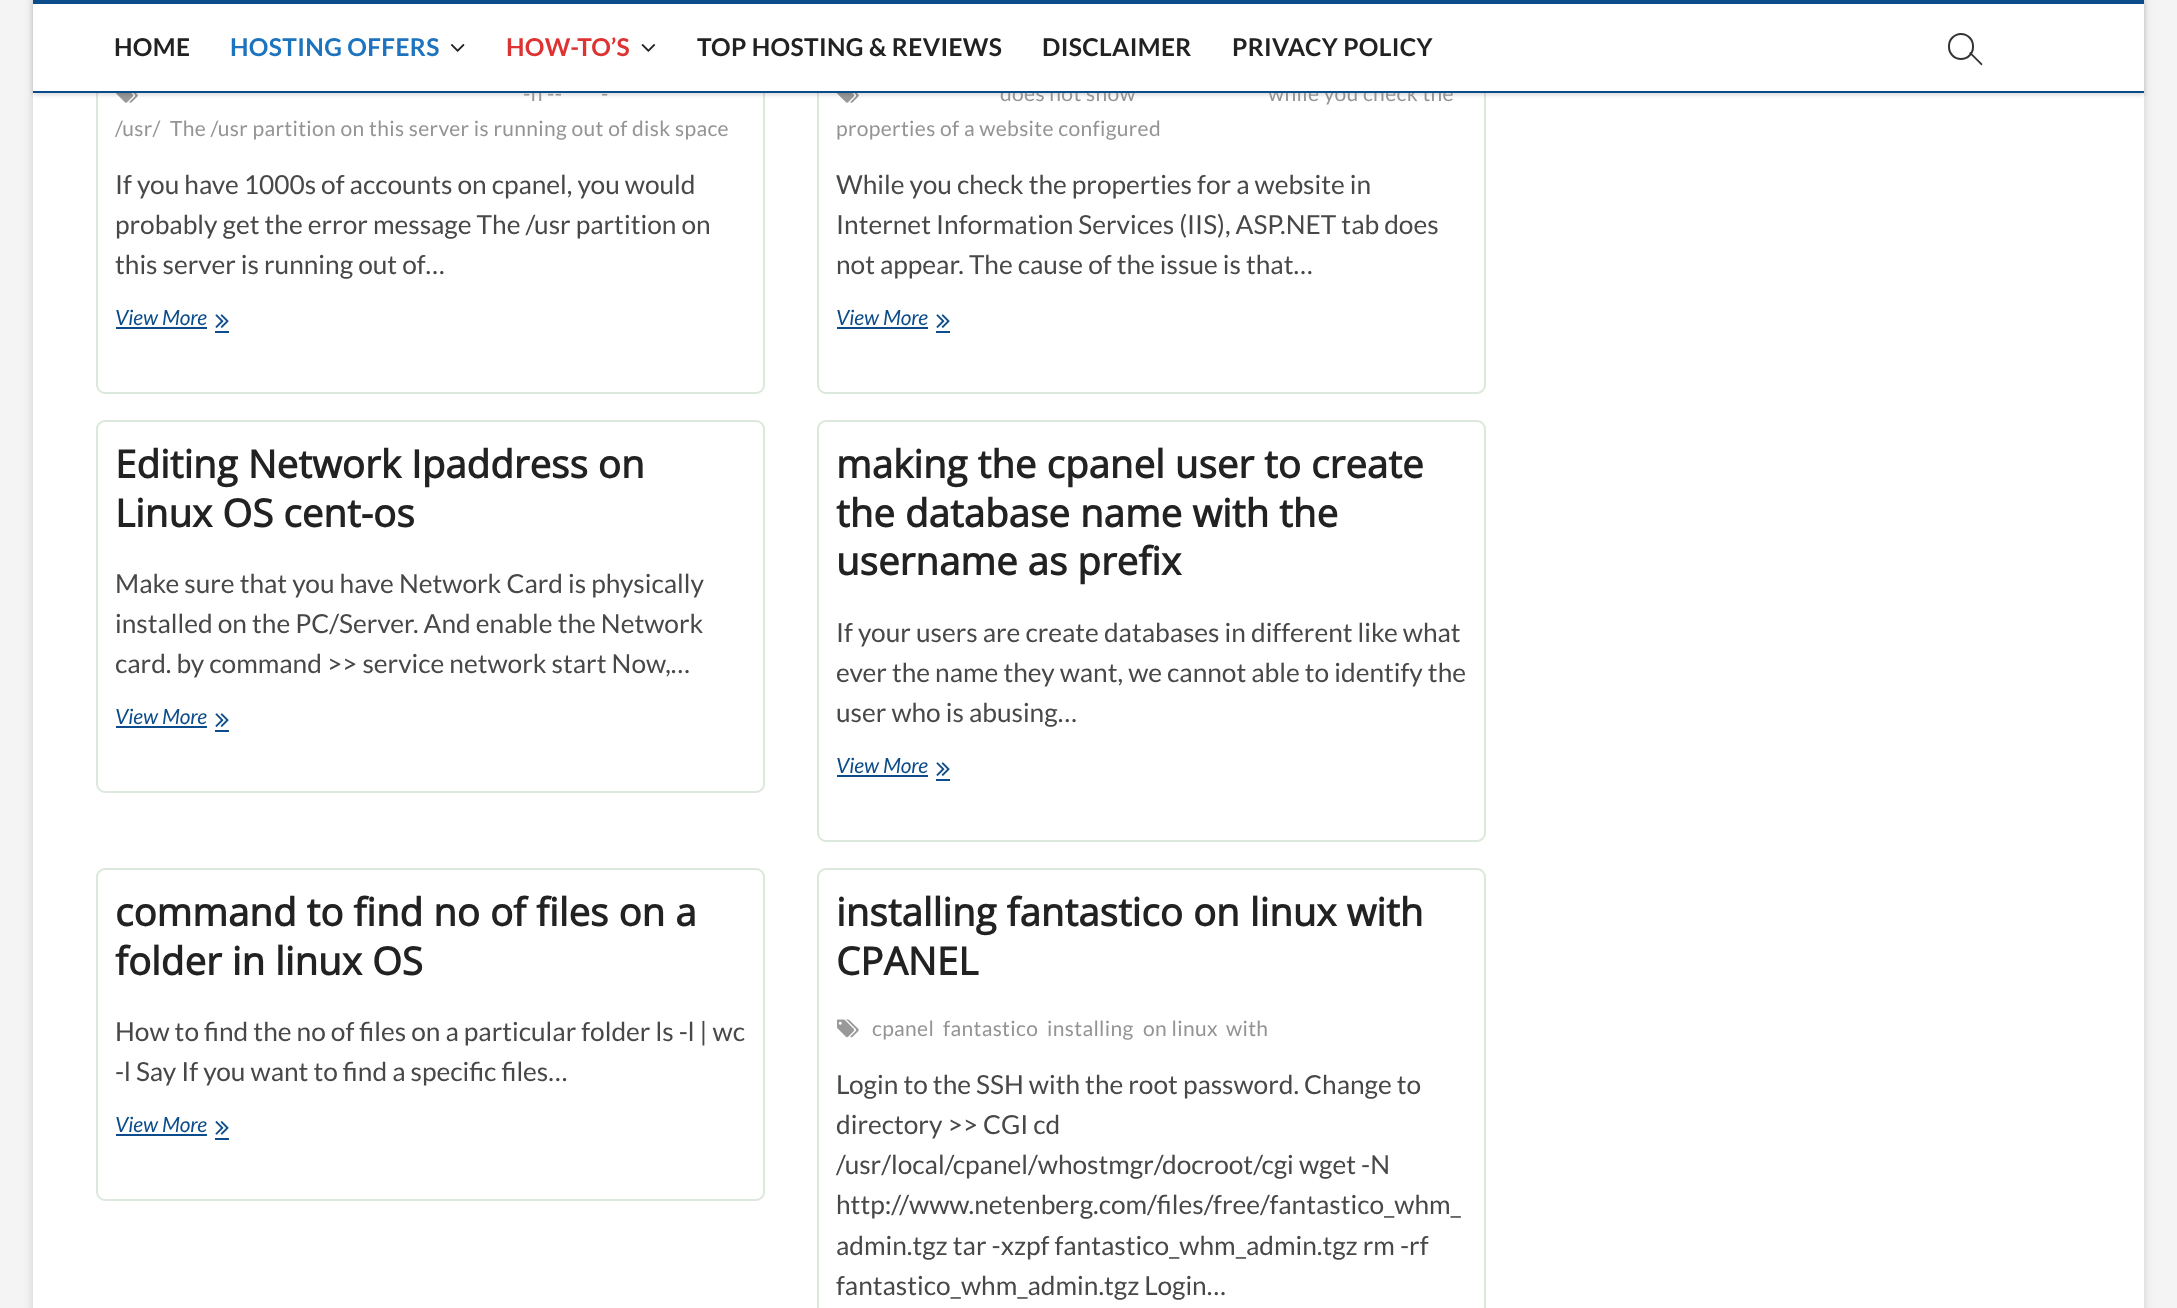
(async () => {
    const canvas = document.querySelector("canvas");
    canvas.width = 2177;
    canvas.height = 1308;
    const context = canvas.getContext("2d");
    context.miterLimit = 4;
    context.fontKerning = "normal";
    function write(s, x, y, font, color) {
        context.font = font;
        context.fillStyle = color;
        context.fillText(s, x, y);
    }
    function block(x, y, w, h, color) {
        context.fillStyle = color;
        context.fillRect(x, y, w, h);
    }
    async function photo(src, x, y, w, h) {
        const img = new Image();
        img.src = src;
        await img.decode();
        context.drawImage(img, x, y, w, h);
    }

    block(0, 0, 2177, 1308, "rgb(244, 244, 244)");
    context.fillStyle = "rgba(0, 0, 0, 0.15)";
    context.filter = "blur(5px)";
    context.beginPath();
    context.rect(33, -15, 2111, 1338);
    context.fill();
    context.filter = "none";
    block(33, 93, 2111, 1215, "rgb(255, 255, 255)");
    context.beginPath();
    context.roundRect(97, -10, 667, 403, 8);
    context.strokeStyle = "rgb(219, 232, 219)";
    context.lineWidth = 2;
    context.stroke();
    await photo("media/3.png", 116, 93, 22, 10);
    context.beginPath();
    context.roundRect(818, -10, 667, 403, 8);
    context.stroke();
    await photo("media/3.png", 837, 93, 22, 10);
    context.fillStyle = "rgba(0, 0, 0, 0.15)";
    context.filter = "blur(2px)";
    context.beginPath();
    context.rect(33, 2, 2111, 93);
    context.fill();
    context.filter = "none";
    context.letterSpacing = "0.35px";
    write("-h --", 523, 101, "21px Lato", "rgb(148, 148, 148)");
    write("does not show", 1000, 101, "21px Lato", "rgb(148, 148, 148)");
    write("while you check the", 1268, 101, "21px Lato", "rgb(148, 148, 148)");
    block(33, 4, 2111, 87, "rgb(255, 255, 255)");
    block(33, 0, 2111, 4, "rgb(12, 76, 138)");
    block(33, 91, 2111, 2, "rgb(12, 76, 138)");
    write("HOME", 114, 56, "bold 24.5px Lato", "rgb(34, 34, 34)");
    write("HOSTING OFFERS", 230, 56, "bold 24.5px Lato", "rgb(30, 115, 190)");
    await photo("media/1.png", 450, 44, 15, 8);
    write("HOW-TO’S", 506, 56, "bold 24.5px Lato", "rgb(221, 51, 51)");
    await photo("media/2.png", 641, 44, 15, 8);
    write("TOP HOSTING & REVIEWS", 697, 56, "bold 24.5px Lato", "rgb(34, 34, 34)");
    write("DISCLAIMER", 1042, 56, "bold 24.5px Lato", "rgb(34, 34, 34)");
    write("PRIVACY POLICY", 1232, 56, "bold 24.5px Lato", "rgb(34, 34, 34)");
    context.beginPath();
    context.roundRect(1949, 34, 24, 25, 12);
    context.strokeStyle = "rgb(51, 51, 51)";
    context.stroke();
    context.fillStyle = "rgb(51, 51, 51)";
    context.beginPath();
    context.moveTo(1969, 53);
    context.lineTo(1970.5, 52);
    context.lineTo(1982.5, 64);
    context.lineTo(1981.5, 65.5);
    context.closePath();
    context.fill();
    write("-", 601, 101, "21px Lato", "rgb(148, 148, 148)");
    write("/usr/", 115, 136, "21px Lato", "rgb(148, 148, 148)");
    write("The /usr partition on this server is running out of disk space", 170, 136, "21px Lato", "rgb(148, 148, 148)");
    context.letterSpacing = "0px";
    write("If you have 1000s of accounts on cpanel, you would", 115, 194, "26.25px Lato", "rgb(72, 72, 72)");
    write("probably get the error message The /usr partition on", 115, 234, "26.25px Lato", "rgb(72, 72, 72)");
    write("this server is running out of…", 115, 274, "26.25px Lato", "rgb(72, 72, 72)");
    write("View More", 115, 325, "italic 21px Lato", "rgb(12, 76, 138)");
    block(116, 327, 91, 2, "rgb(12, 76, 138)");
    await photo("media/4.png", 215, 314, 14, 14);
    block(215, 331, 14, 2, "rgb(12, 76, 138)");
    context.letterSpacing = "0.35px";
    write("properties of a website configured", 836, 136, "21px Lato", "rgb(148, 148, 148)");
    context.letterSpacing = "0px";
    write("While you check the properties for a website in", 836, 194, "26.25px Lato", "rgb(72, 72, 72)");
    write("Internet Information Services (IIS), ASP.NET tab does", 836, 234, "26.25px Lato", "rgb(72, 72, 72)");
    write("not appear. The cause of the issue is that…", 836, 274, "26.25px Lato", "rgb(72, 72, 72)");
    write("View More", 836, 325, "italic 21px Lato", "rgb(12, 76, 138)");
    block(837, 327, 91, 2, "rgb(12, 76, 138)");
    await photo("media/4.png", 936, 314, 14, 14);
    block(936, 331, 14, 2, "rgb(12, 76, 138)");
    context.beginPath();
    context.roundRect(97, 421, 667, 371, 8);
    context.strokeStyle = "rgb(219, 232, 219)";
    context.stroke();
    write("Editing Network Ipaddress on", 115, 478, "bold 38.5px Open Sans", "rgb(34, 34, 34)");
    write("Linux OS cent-os", 115, 527, "bold 38.5px Open Sans", "rgb(34, 34, 34)");
    write("Make sure that you have Network Card is physically", 115, 593, "26.25px Lato", "rgb(72, 72, 72)");
    write("installed on the PC/Server. And enable the Network", 115, 633, "26.25px Lato", "rgb(72, 72, 72)");
    write("card. by command >> service network start Now,…", 115, 673, "26.25px Lato", "rgb(72, 72, 72)");
    write("View More", 115, 724, "italic 21px Lato", "rgb(12, 76, 138)");
    block(116, 726, 91, 2, "rgb(12, 76, 138)");
    await photo("media/4.png", 215, 713, 14, 14);
    block(215, 730, 14, 2, "rgb(12, 76, 138)");
    context.beginPath();
    context.roundRect(818, 421, 667, 420, 8);
    context.stroke();
    write("making the cpanel user to create", 836, 478, "bold 38.5px Open Sans", "rgb(34, 34, 34)");
    write("the database name with the", 836, 527, "bold 38.5px Open Sans", "rgb(34, 34, 34)");
    write("username as prefix", 836, 575, "bold 38.5px Open Sans", "rgb(34, 34, 34)");
    write("If your users are create databases in different like what", 836, 642, "26.25px Lato", "rgb(72, 72, 72)");
    write("ever the name they want, we cannot able to identify the", 836, 682, "26.25px Lato", "rgb(72, 72, 72)");
    write("user who is abusing…", 836, 722, "26.25px Lato", "rgb(72, 72, 72)");
    write("View More", 836, 773, "italic 21px Lato", "rgb(12, 76, 138)");
    block(837, 775, 91, 2, "rgb(12, 76, 138)");
    await photo("media/4.png", 936, 762, 14, 14);
    block(936, 779, 14, 2, "rgb(12, 76, 138)");
    context.beginPath();
    context.roundRect(97, 869, 667, 331, 8);
    context.stroke();
    write("command to find no of files on a", 115, 926, "bold 38.5px Open Sans", "rgb(34, 34, 34)");
    write("folder in linux OS", 115, 975, "bold 38.5px Open Sans", "rgb(34, 34, 34)");
    write("How to find the no of files on a particular folder ls -l | wc", 115, 1041, "26.25px Lato", "rgb(72, 72, 72)");
    write("-l Say If you want to find a specific files…", 115, 1081, "26.25px Lato", "rgb(72, 72, 72)");
    write("View More", 115, 1132, "italic 21px Lato", "rgb(12, 76, 138)");
    block(116, 1134, 91, 2, "rgb(12, 76, 138)");
    await photo("media/5.png", 215, 1121, 14, 14);
    block(215, 1138, 14, 2, "rgb(12, 76, 138)");
    context.beginPath();
    context.roundRect(818, 869, 667, 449, 8);
    context.stroke();
    write("installing fantastico on linux with", 836, 926, "bold 38.5px Open Sans", "rgb(34, 34, 34)");
    write("CPANEL", 836, 975, "bold 38.5px Open Sans", "rgb(34, 34, 34)");
    await photo("media/6.png", 837, 1019, 22, 19);
    context.letterSpacing = "0.35px";
    write("cpanel", 872, 1036, "21px Lato", "rgb(148, 148, 148)");
    write("fantastico", 943, 1036, "21px Lato", "rgb(148, 148, 148)");
    write("installing", 1047, 1036, "21px Lato", "rgb(148, 148, 148)");
    write("on linux", 1143, 1036, "21px Lato", "rgb(148, 148, 148)");
    write("with", 1226, 1036, "21px Lato", "rgb(148, 148, 148)");
    context.letterSpacing = "0px";
    write("Login to the SSH with the root password. Change to", 836, 1094, "26.25px Lato", "rgb(72, 72, 72)");
    write("directory >> CGI cd", 836, 1134, "26.25px Lato", "rgb(72, 72, 72)");
    write("/usr/local/cpanel/whostmgr/docroot/cgi wget -N", 836, 1174, "26.25px Lato", "rgb(72, 72, 72)");
    write("http://www.netenberg.com/files/free/fantastico_whm_", 836, 1214, "26.25px Lato", "rgb(72, 72, 72)");
    write("admin.tgz tar -xzpf fantastico_whm_admin.tgz rm -rf", 836, 1255, "26.25px Lato", "rgb(72, 72, 72)");
    write("fantastico_whm_admin.tgz Login…", 836, 1295, "26.25px Lato", "rgb(72, 72, 72)");
})();
